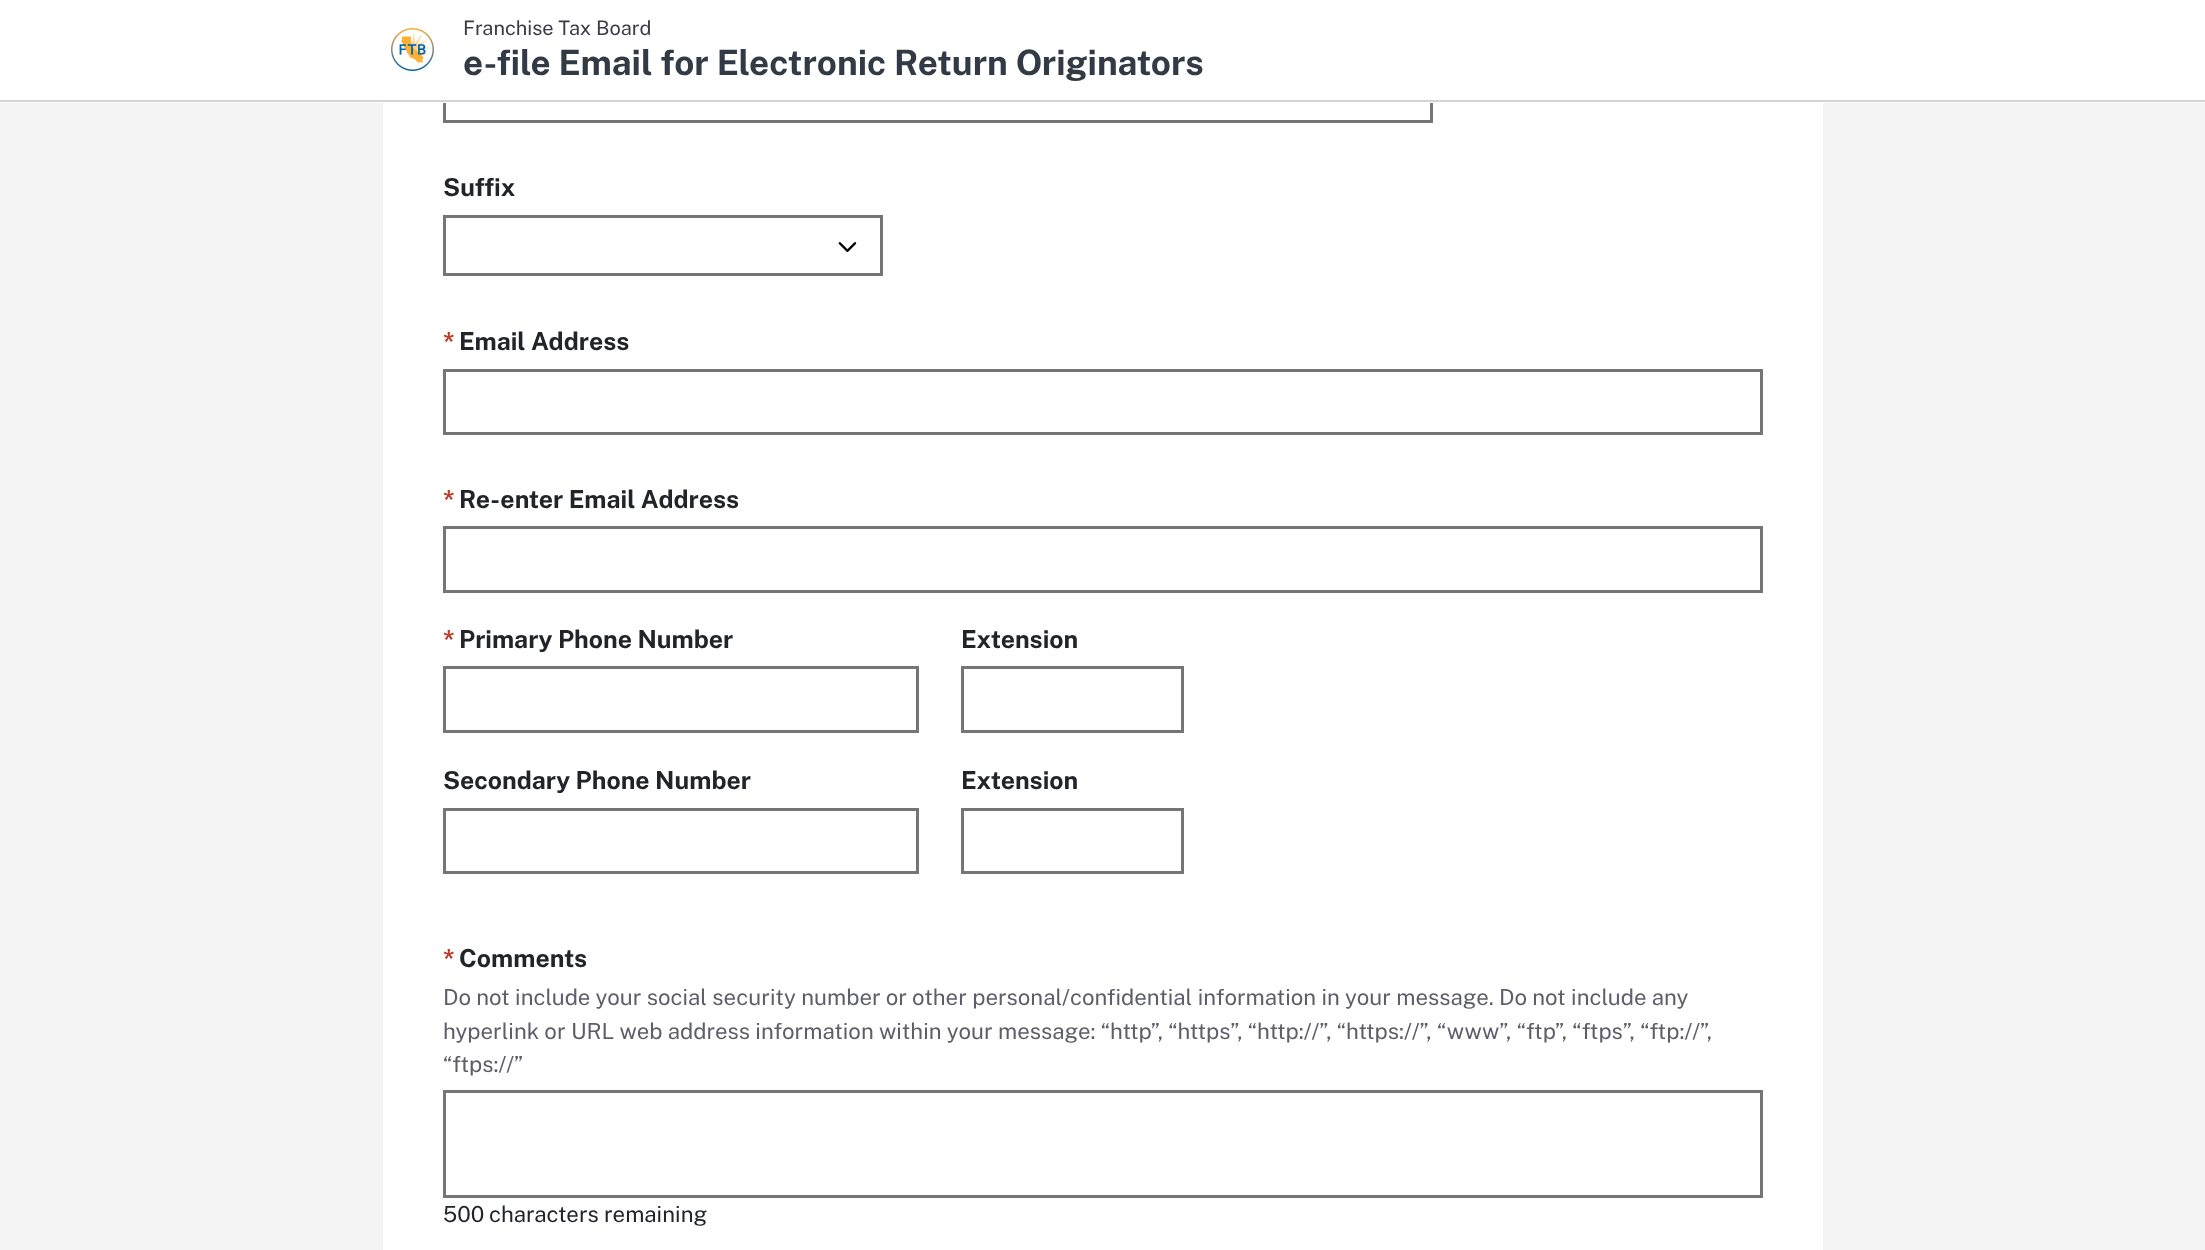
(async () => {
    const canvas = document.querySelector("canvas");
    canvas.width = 2205;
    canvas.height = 1250;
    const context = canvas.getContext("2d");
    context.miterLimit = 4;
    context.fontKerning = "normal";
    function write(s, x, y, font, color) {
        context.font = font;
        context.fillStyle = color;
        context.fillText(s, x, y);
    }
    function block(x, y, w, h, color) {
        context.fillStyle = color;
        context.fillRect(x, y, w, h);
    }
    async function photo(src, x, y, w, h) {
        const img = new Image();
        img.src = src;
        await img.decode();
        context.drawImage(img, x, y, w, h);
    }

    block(0, 0, 2205, 1250, "rgb(243, 243, 244)");
    block(383, 103, 1440, 1147, "rgb(255, 255, 255)");
    context.strokeStyle = "rgb(117, 117, 117)";
    context.lineWidth = 3;
    context.strokeRect(444.5, 57.5, 987, 64);
    block(0, 0, 2205, 103, "rgb(255, 255, 255)");
    block(0, 100, 2205, 2, "rgb(212, 212, 215)");
    await photo("media/1.png", 391, 28, 43, 43);
    write("Franchise Tax Board", 463, 35, "20px Public Sans", "rgb(59, 58, 72)");
    write("e-file Email for Electronic Return Originators", 463, 75, "bold 35px Public Sans", "rgb(50, 58, 69)");
    write("Suffix", 443, 196, "bold 24.75px Public Sans", "rgb(33, 37, 41)");
    await photo("media/2.png", 838, 242, 19, 10);
    context.strokeRect(444.5, 216.5, 437, 58);
    write("*", 443, 350, "bold 24.75px Public Sans", "rgb(191, 59, 42)");
    write("Email Address", 459, 350, "bold 24.75px Public Sans", "rgb(33, 37, 41)");
    context.strokeRect(444.5, 370.5, 1317, 63);
    write("*", 443, 508, "bold 24.75px Public Sans", "rgb(191, 59, 42)");
    write("Re-enter Email Address", 459, 508, "bold 24.75px Public Sans", "rgb(33, 37, 41)");
    context.strokeRect(444.5, 527.5, 1317, 64);
    write("*", 443, 648, "bold 24.75px Public Sans", "rgb(191, 59, 42)");
    write("Primary Phone Number", 459, 648, "bold 24.75px Public Sans", "rgb(33, 37, 41)");
    context.strokeRect(444.5, 667.5, 473, 64);
    write("Extension", 961, 648, "bold 24.75px Public Sans", "rgb(33, 37, 41)");
    context.strokeRect(962.5, 667.5, 220, 64);
    write("Secondary Phone Number", 443, 789, "bold 24.75px Public Sans", "rgb(33, 37, 41)");
    context.strokeRect(444.5, 809.5, 473, 63);
    write("Extension", 961, 789, "bold 24.75px Public Sans", "rgb(33, 37, 41)");
    context.strokeRect(962.5, 809.5, 220, 63);
    write("*", 443, 967, "bold 24.75px Public Sans", "rgb(191, 59, 42)");
    write("Comments", 459, 967, "bold 24.75px Public Sans", "rgb(33, 37, 41)");
    write("Do not include your social security number or other personal/confidential information in your message. Do not include any", 443, 1005, "22.2px Public Sans", "rgb(94, 94, 106)");
    write("hyperlink or URL web address information within your message: “http”, “https”, “http://”, “https://”, “www”, “ftp”, “ftps”, “ftp://”,", 443, 1039, "22.2px Public Sans", "rgb(94, 94, 106)");
    write("“ftps://”", 443, 1072, "22.2px Public Sans", "rgb(94, 94, 106)");
    context.strokeRect(444.5, 1091.5, 1317, 105);
    write("500", 443, 1222, "22.2px Public Sans", "rgb(33, 37, 41)");
    write("characters remaining", 489, 1222, "22.2px Public Sans", "rgb(33, 37, 41)");
})();
